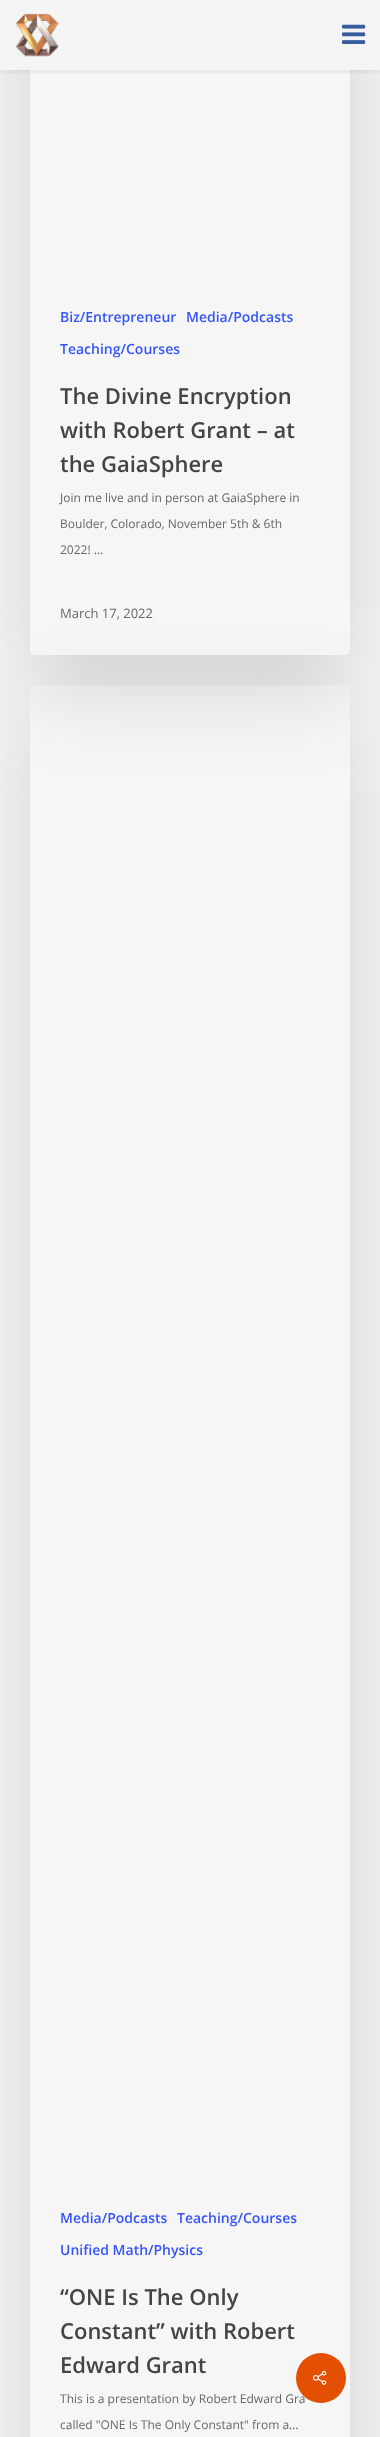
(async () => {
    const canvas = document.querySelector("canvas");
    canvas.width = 380;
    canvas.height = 2437;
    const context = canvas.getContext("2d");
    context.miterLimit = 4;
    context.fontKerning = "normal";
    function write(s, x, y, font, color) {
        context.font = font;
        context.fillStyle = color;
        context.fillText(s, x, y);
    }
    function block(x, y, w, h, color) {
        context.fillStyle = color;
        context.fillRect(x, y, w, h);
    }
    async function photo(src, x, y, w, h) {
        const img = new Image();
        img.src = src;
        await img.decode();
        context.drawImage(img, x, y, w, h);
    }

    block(0, 0, 380, 2437, "rgb(246, 246, 246)");
    context.save();
    context.beginPath();
    context.rect(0, 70, 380, 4);
    context.clip();
    context.fillStyle = "rgba(0, 0, 0, 0.1)";
    context.filter = "blur(5px)";
    context.beginPath();
    context.rect(0, 0, 380, 70);
    context.fill();
    context.filter = "none";
    context.restore();
    context.save();
    context.beginPath();
    context.moveTo(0, 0);
    context.lineTo(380, 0);
    context.lineTo(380, 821);
    context.lineTo(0, 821);
    context.closePath();
    context.moveTo(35, -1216);
    context.lineTo(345, -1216);
    context.bezierCurveTo(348, -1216, 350, -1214, 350, -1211);
    context.lineTo(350, 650);
    context.bezierCurveTo(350, 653, 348, 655, 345, 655);
    context.lineTo(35, 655);
    context.bezierCurveTo(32, 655, 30, 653, 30, 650);
    context.lineTo(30, -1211);
    context.bezierCurveTo(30, -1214, 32, -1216, 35, -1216);
    context.closePath();
    context.clip("evenodd");
    context.fillStyle = "rgba(0, 0, 0, 0.14)";
    context.filter = "blur(45px)";
    context.beginPath();
    context.roundRect(30, -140, 320, 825, 5);
    context.fill();
    context.filter = "none";
    context.restore();
    block(0, 0, 380, 70, "rgba(245, 245, 245, 0.96)");
    await photo("media/1.png", 15, 13, 44, 44);
    await photo("media/2.png", 342, 24, 24, 20);
    write("Biz/Entrepreneur", 60, 322, "600 14px Open Sans", "rgb(53, 85, 255)");
    write("Media/Podcasts", 186, 322, "600 14px Open Sans", "rgb(53, 85, 255)");
    write("Teaching/Courses", 60, 354, "600 14px Open Sans", "rgb(53, 85, 255)");
    write("The Divine Encryption", 60, 404, "600 22px Open Sans", "rgb(68, 68, 68)");
    write("with Robert Grant – at", 60, 438, "600 22px Open Sans", "rgb(68, 68, 68)");
    write("the GaiaSphere", 60, 472, "600 22px Open Sans", "rgb(68, 68, 68)");
    write("Join me live and in person at GaiaSphere in", 60, 502, "12px Open Sans", "rgb(103, 103, 103)");
    write("Boulder, Colorado, November 5th & 6th", 60, 528, "12px Open Sans", "rgb(103, 103, 103)");
    write("2022! …", 60, 554, "12px Open Sans", "rgb(103, 103, 103)");
    write("March 17, 2022", 60, 618, "13px Open Sans", "rgb(103, 103, 103)");
    context.save();
    context.beginPath();
    context.moveTo(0, 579);
    context.lineTo(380, 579);
    context.lineTo(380, 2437);
    context.lineTo(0, 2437);
    context.closePath();
    context.moveTo(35, 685);
    context.lineTo(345, 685);
    context.bezierCurveTo(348, 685, 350, 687, 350, 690);
    context.lineTo(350, 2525);
    context.bezierCurveTo(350, 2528, 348, 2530, 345, 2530);
    context.lineTo(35, 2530);
    context.bezierCurveTo(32, 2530, 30, 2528, 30, 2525);
    context.lineTo(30, 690);
    context.bezierCurveTo(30, 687, 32, 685, 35, 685);
    context.closePath();
    context.clip("evenodd");
    context.fillStyle = "rgba(0, 0, 0, 0.14)";
    context.filter = "blur(45px)";
    context.beginPath();
    context.roundRect(30, 715, 320, 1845, 5);
    context.fill();
    context.filter = "none";
    context.restore();
    write("Media/Podcasts", 60, 2223, "600 14px Open Sans", "rgb(53, 85, 255)");
    write("Teaching/Courses", 177, 2223, "600 14px Open Sans", "rgb(53, 85, 255)");
    write("Unified Math/Physics", 60, 2255, "600 14px Open Sans", "rgb(53, 85, 255)");
    write("“ONE Is The Only", 60, 2305, "600 22px Open Sans", "rgb(68, 68, 68)");
    write("Constant” with Robert", 60, 2339, "600 22px Open Sans", "rgb(68, 68, 68)");
    write("Edward Grant", 60, 2373, "600 22px Open Sans", "rgb(68, 68, 68)");
    write("This is a presentation by Robert Edward Gra", 60, 2403, "12px Open Sans", "rgb(103, 103, 103)");
    write("called \"ONE Is The Only Constant\" from a…", 60, 2429, "12px Open Sans", "rgb(103, 103, 103)");
    context.fillStyle = "rgb(226, 79, 0)";
    context.beginPath();
    context.arc(321, 2378, 25, 0, Math.PI * 2);
    context.fill();
    await photo("media/3.png", 313, 2370, 14, 15);
})();
